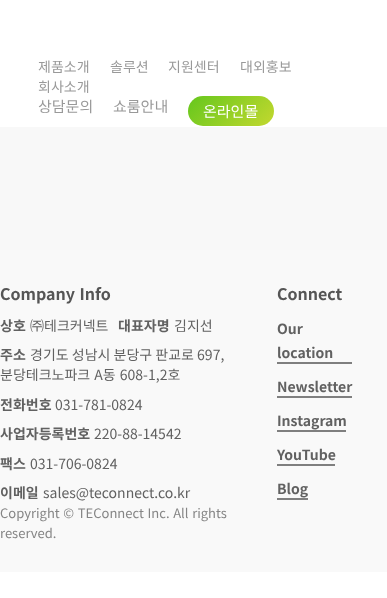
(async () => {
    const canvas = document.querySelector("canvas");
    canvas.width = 387;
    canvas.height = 598;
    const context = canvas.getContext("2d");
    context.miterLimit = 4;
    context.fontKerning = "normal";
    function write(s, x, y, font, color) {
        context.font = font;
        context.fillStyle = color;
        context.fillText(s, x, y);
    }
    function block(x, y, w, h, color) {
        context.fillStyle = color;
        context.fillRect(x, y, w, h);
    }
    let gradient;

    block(0, 0, 387, 598, "rgb(255, 255, 255)");
    write("제품소개", 38, 72, "14px Noto Sans KR", "rgb(153, 153, 153)");
    write("솔루션", 110, 72, "14px Noto Sans KR", "rgb(153, 153, 153)");
    write("지원센터", 168, 72, "14px Noto Sans KR", "rgb(153, 153, 153)");
    write("대외홍보", 240, 72, "14px Noto Sans KR", "rgb(153, 153, 153)");
    write("회사소개", 38, 92, "14px Noto Sans KR", "rgb(153, 153, 153)");
    write("상담문의", 38, 112, "15px Noto Sans KR", "rgb(153, 153, 153)");
    write("쇼룸안내", 113, 112, "15px Noto Sans KR", "rgb(153, 153, 153)");
    gradient = context.createLinearGradient(202, 82, 260, 140);
    gradient.addColorStop(0, "rgb(101, 199, 29)");
    gradient.addColorStop(1, "rgb(195, 216, 47)");
    context.fillStyle = gradient;
    context.beginPath();
    context.roundRect(188, 96, 86, 30, 15);
    context.fill();
    write("온라인몰", 203, 117, "15px Noto Sans KR", "rgb(255, 255, 255)");
    block(0, 127, 387, 123, "rgb(248, 248, 248)");
    block(0, 250, 387, 322, "rgb(249, 249, 249)");
    context.wordSpacing = "1px";
    write("Company Info", 0, 300, "bold 16px Noto Sans KR", "rgb(85, 85, 85)");
    context.wordSpacing = "0px";
    write("상호", 0, 331, "bold 14px Noto Sans KR", "rgb(97, 97, 97)");
    write("㈜테크커넥트", 30, 331, "14px Noto Sans KR", "rgb(97, 97, 97)");
    write("대표자명", 118, 331, "bold 14px Noto Sans KR", "rgb(97, 97, 97)");
    write("김지선", 174, 331, "14px Noto Sans KR", "rgb(97, 97, 97)");
    write("주소", 0, 360, "bold 14px Noto Sans KR", "rgb(97, 97, 97)");
    write("경기도 성남시 분당구 판교로 697,", 30, 360, "14px Noto Sans KR", "rgb(97, 97, 97)");
    context.wordSpacing = "1px";
    write("분당테크노파크 A동 608-1,2호", 0, 380, "14px Noto Sans KR", "rgb(97, 97, 97)");
    context.wordSpacing = "0px";
    write("전화번호", 0, 410, "bold 14px Noto Sans KR", "rgb(97, 97, 97)");
    write("031-781-0824", 55, 410, "14px Noto Sans KR", "rgb(97, 97, 97)");
    write("사업자등록번호", 0, 439, "bold 14px Noto Sans KR", "rgb(97, 97, 97)");
    write("220-88-14542", 94, 439, "14px Noto Sans KR", "rgb(97, 97, 97)");
    write("팩스", 0, 469, "bold 14px Noto Sans KR", "rgb(97, 97, 97)");
    write("031-706-0824", 30, 469, "14px Noto Sans KR", "rgb(97, 97, 97)");
    write("이메일", 0, 498, "bold 14px Noto Sans KR", "rgb(97, 97, 97)");
    write("sales@teconnect.co.kr", 43, 498, "14px Noto Sans KR", "rgb(97, 97, 97)");
    context.wordSpacing = "0.75px";
    write("Copyright © TEConnect Inc. All rights", 0, 518, "13px Noto Sans KR", "rgb(133, 133, 133)");
    context.wordSpacing = "0px";
    write("reserved.", 0, 538, "13px Noto Sans KR", "rgb(133, 133, 133)");
    write("Connect", 277, 300, "bold 16px Noto Sans KR", "rgb(85, 85, 85)");
    write("Our", 277, 334, "bold 14px Noto Sans KR", "rgb(97, 97, 97)");
    write("location", 277, 358, "bold 14px Noto Sans KR", "rgb(97, 97, 97)");
    block(277, 362, 75, 2, "rgb(127, 127, 127)");
    write("Newsletter", 277, 392, "bold 14px Noto Sans KR", "rgb(97, 97, 97)");
    block(277, 396, 75, 2, "rgb(127, 127, 127)");
    write("Instagram", 277, 426, "bold 14px Noto Sans KR", "rgb(97, 97, 97)");
    block(277, 430, 69, 2, "rgb(127, 127, 127)");
    write("YouTube", 277, 460, "bold 14px Noto Sans KR", "rgb(97, 97, 97)");
    block(277, 464, 58, 2, "rgb(127, 127, 127)");
    write("Blog", 277, 494, "bold 14px Noto Sans KR", "rgb(97, 97, 97)");
    block(277, 498, 31, 2, "rgb(127, 127, 127)");
})();
